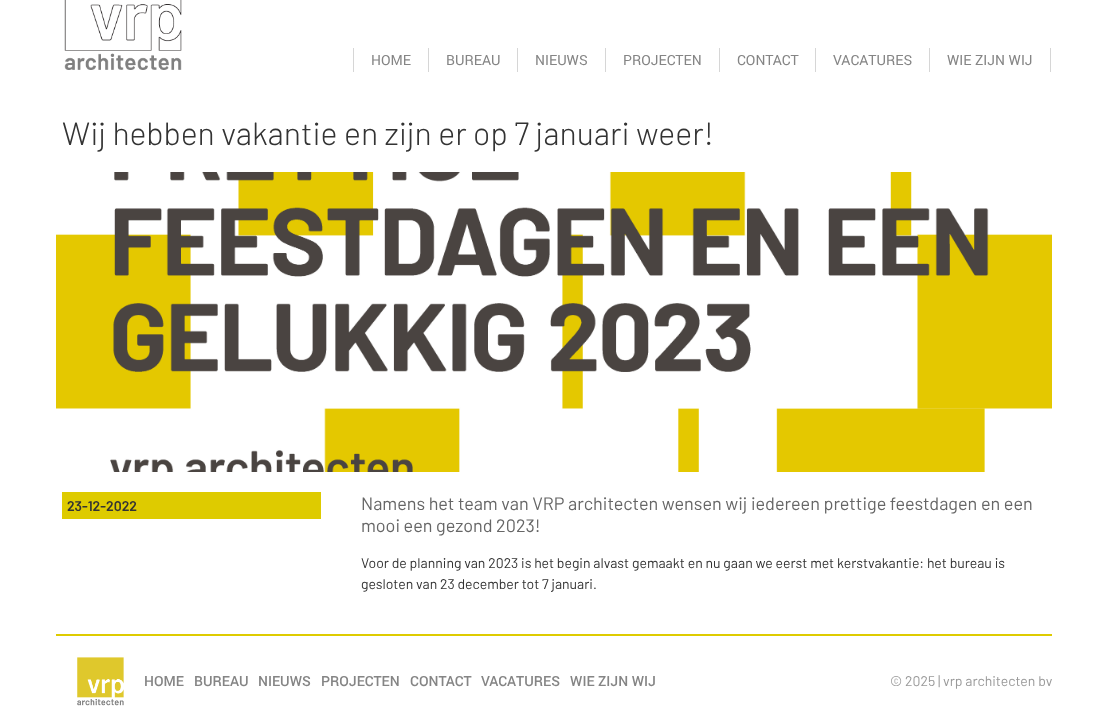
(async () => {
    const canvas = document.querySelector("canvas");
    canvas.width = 1108;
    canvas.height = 717;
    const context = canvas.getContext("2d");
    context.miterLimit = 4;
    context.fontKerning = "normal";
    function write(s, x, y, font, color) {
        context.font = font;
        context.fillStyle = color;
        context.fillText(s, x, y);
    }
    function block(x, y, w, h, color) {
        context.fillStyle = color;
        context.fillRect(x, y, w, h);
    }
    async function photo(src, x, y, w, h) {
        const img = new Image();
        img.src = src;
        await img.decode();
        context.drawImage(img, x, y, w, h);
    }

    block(0, 0, 1108, 717, "rgb(255, 255, 255)");
    await photo("media/1.png", 64, 0, 118, 70);
    block(353, 48, 1, 24, "rgb(214, 214, 214)");
    write("HOME", 371, 65, "14px Roboto", "rgb(133, 133, 133)");
    block(428, 48, 1, 24, "rgb(214, 214, 214)");
    write("BUREAU", 446, 65, "14px Roboto", "rgb(133, 133, 133)");
    block(517, 48, 1, 24, "rgb(214, 214, 214)");
    write("NIEUWS", 535, 65, "14px Roboto", "rgb(133, 133, 133)");
    block(605, 48, 1, 24, "rgb(214, 214, 214)");
    write("PROJECTEN", 623, 65, "14px Roboto", "rgb(133, 133, 133)");
    block(719, 48, 1, 24, "rgb(214, 214, 214)");
    write("CONTACT", 737, 65, "14px Roboto", "rgb(133, 133, 133)");
    block(815, 48, 1, 24, "rgb(214, 214, 214)");
    write("VACATURES", 833, 65, "14px Roboto", "rgb(133, 133, 133)");
    block(1050, 48, 1, 24, "rgb(214, 214, 214)");
    block(929, 48, 1, 24, "rgb(214, 214, 214)");
    write("WIE ZIJN WIJ", 947, 65, "14px Roboto", "rgb(133, 133, 133)");
    write("Wij hebben vakantie en zijn er op 7 januari weer!", 62, 145, "300 32px Barlow", "rgb(51, 51, 51)");
    await photo("media/2.png", 56, 172, 996, 300);
    block(62, 492, 259, 27, "rgb(222, 203, 0)");
    write("23-12-2022", 67, 511, "600 14px Barlow", "rgb(51, 51, 51)");
    write("Namens het team van VRP architecten wensen wij iedereen prettige feestdagen en een", 361, 510, "18px Barlow", "rgb(102, 102, 102)");
    write("mooi een gezond 2023!", 361, 532, "18px Barlow", "rgb(102, 102, 102)");
    write("Voor de planning van 2023 is het begin alvast gemaakt en nu gaan we eerst met kerstvakantie: het bureau is", 361, 568, "14px Barlow", "rgb(51, 51, 51)");
    write("gesloten van 23 december tot 7 januari.", 361, 589, "14px Barlow", "rgb(51, 51, 51)");
    block(56, 634, 996, 2, "rgb(222, 203, 0)");
    await photo("media/3.png", 77, 657, 47, 49);
    write("HOME", 144, 686, "500 14px Roboto", "rgb(133, 133, 133)");
    write("BUREAU", 194, 686, "500 14px Roboto", "rgb(133, 133, 133)");
    write("NIEUWS", 258, 686, "500 14px Roboto", "rgb(133, 133, 133)");
    write("PROJECTEN", 321, 686, "500 14px Roboto", "rgb(133, 133, 133)");
    write("CONTACT", 410, 686, "500 14px Roboto", "rgb(133, 133, 133)");
    write("VACATURES", 481, 686, "500 14px Roboto", "rgb(133, 133, 133)");
    write("WIE ZIJN WIJ", 570, 686, "500 14px Roboto", "rgb(133, 133, 133)");
    write("© 2025 | vrp architecten bv", 890, 686, "14px Barlow", "rgb(153, 153, 153)");
})();
